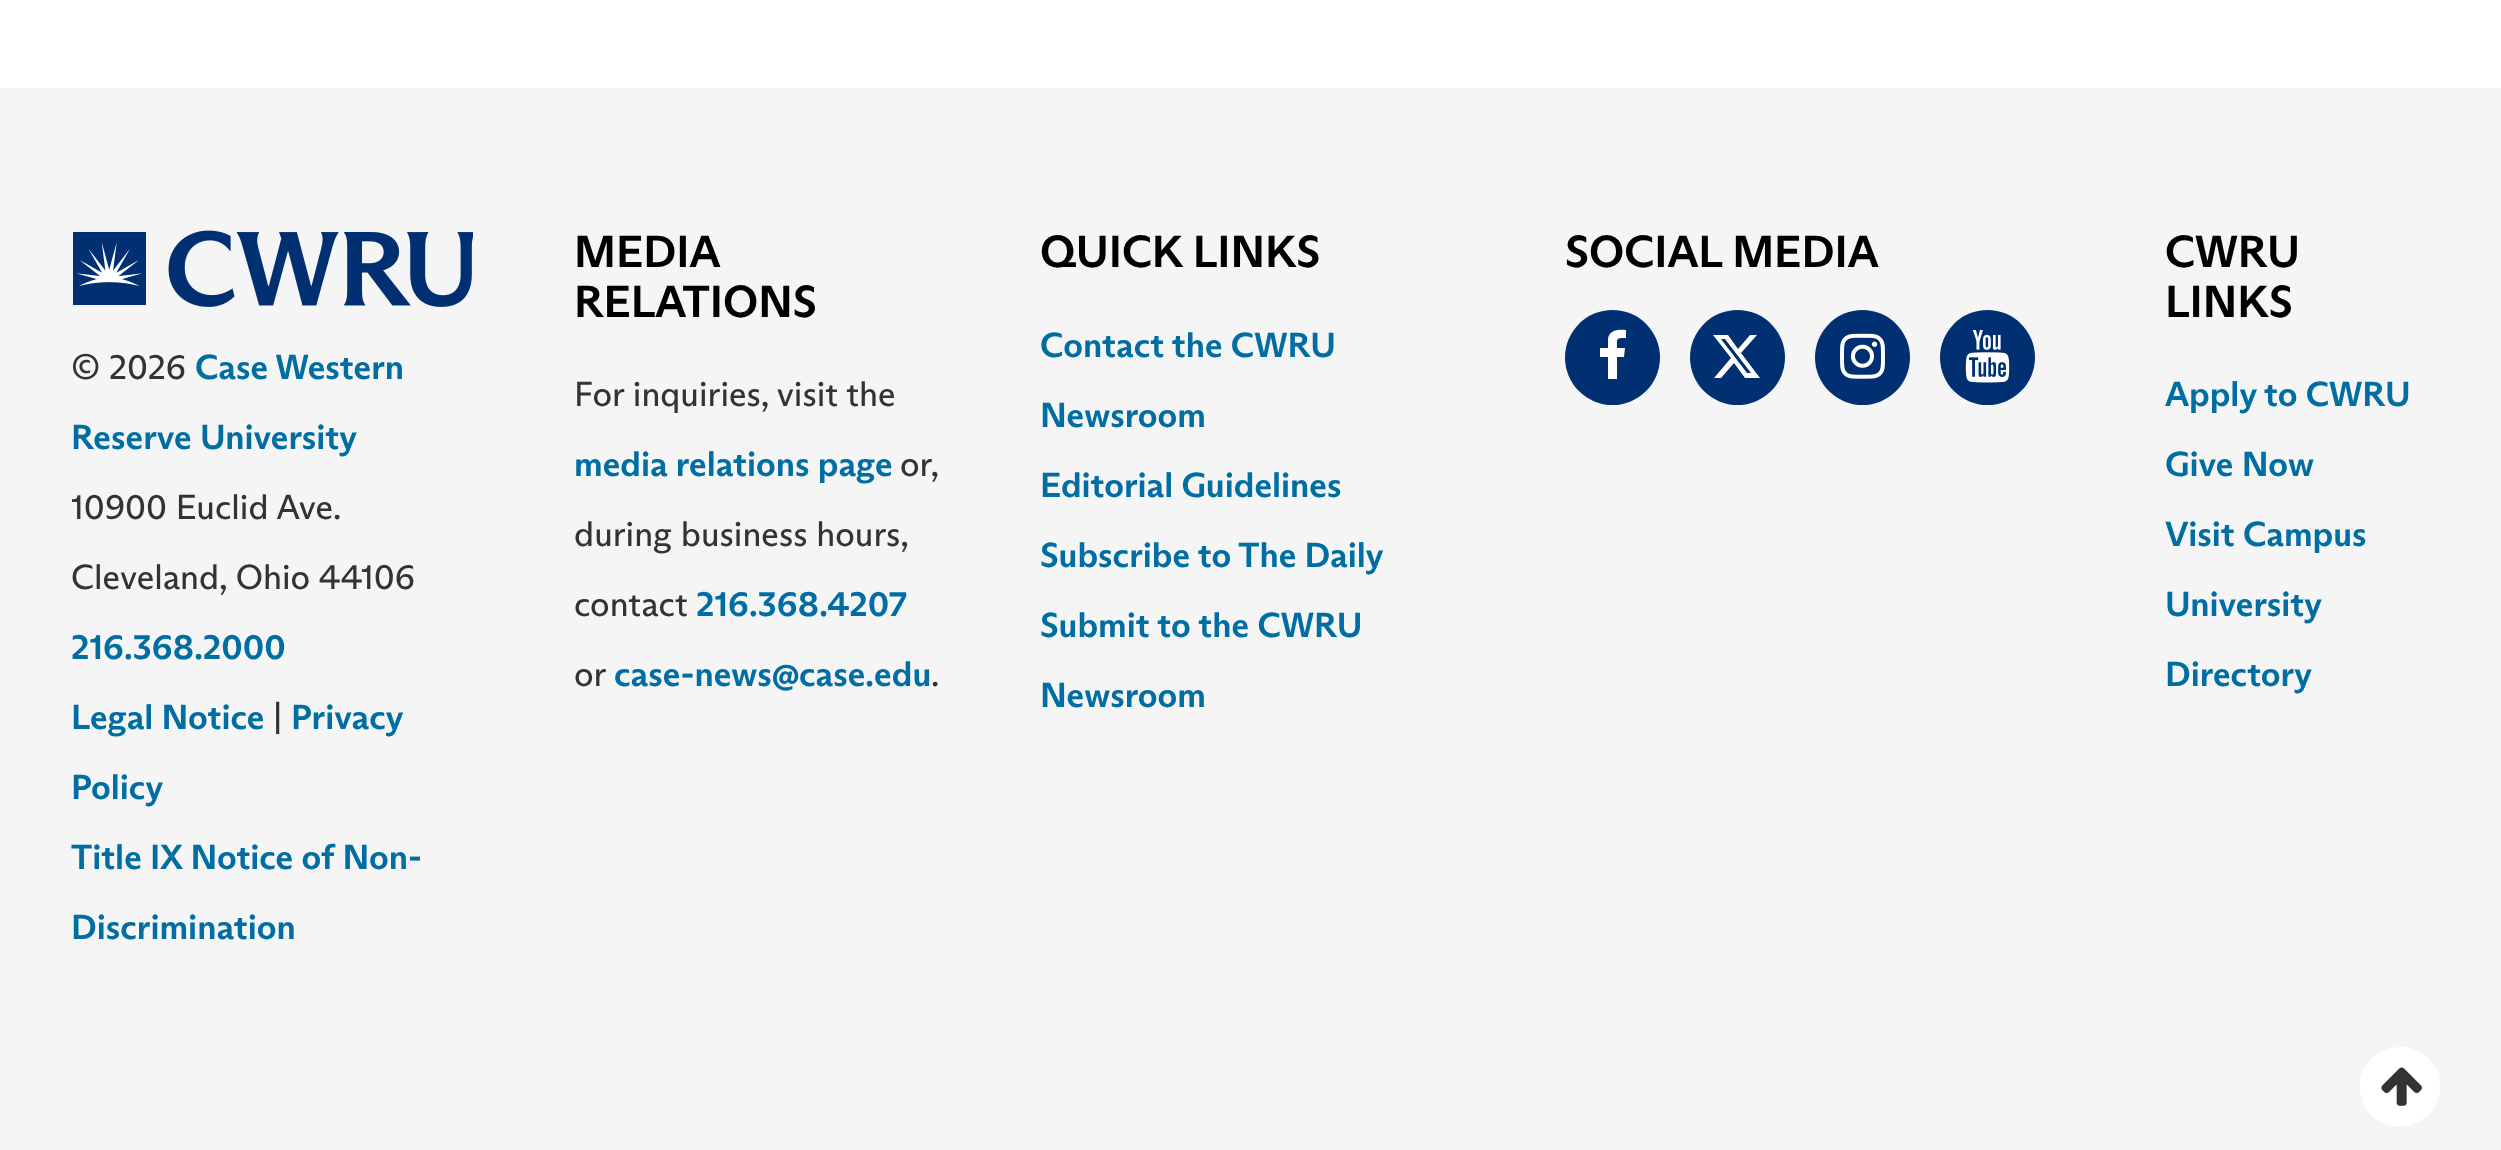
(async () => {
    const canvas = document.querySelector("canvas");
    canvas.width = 2501;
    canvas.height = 1150;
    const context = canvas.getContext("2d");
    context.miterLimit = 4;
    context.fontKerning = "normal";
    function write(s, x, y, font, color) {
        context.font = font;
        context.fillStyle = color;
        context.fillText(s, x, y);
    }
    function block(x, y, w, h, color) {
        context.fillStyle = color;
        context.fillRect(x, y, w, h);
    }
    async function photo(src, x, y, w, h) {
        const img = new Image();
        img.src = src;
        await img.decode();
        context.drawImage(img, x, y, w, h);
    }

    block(0, 0, 2501, 1150, "rgb(255, 255, 255)");
    block(0, 88, 2501, 1062, "rgb(245, 245, 245)");
    await photo("media/1.png", 73, 230, 400, 77);
    write("© 2026", 71, 379, "35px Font", "rgb(51, 51, 51)");
    write("Case Western", 195, 379, "bold 35px Font", "rgb(0, 109, 163)");
    write("Reserve University", 71, 449, "bold 35px Font", "rgb(0, 109, 163)");
    write("10900 Euclid Ave.", 71, 519, "35px Font", "rgb(51, 51, 51)");
    write("Cleveland, Ohio 44106", 71, 589, "35px Font", "rgb(51, 51, 51)");
    write("216.368.2000", 71, 659, "bold 35px Font", "rgb(0, 109, 163)");
    write("Legal Notice", 71, 729, "bold 35px Font", "rgb(0, 109, 163)");
    write("|", 273, 729, "35px Font", "rgb(51, 51, 51)");
    write("Privacy", 291, 729, "bold 35px Font", "rgb(0, 109, 163)");
    write("Policy", 71, 799, "bold 35px Font", "rgb(0, 109, 163)");
    write("Title IX Notice of Non-", 71, 869, "bold 35px Font", "rgb(0, 109, 163)");
    write("Discrimination", 71, 939, "bold 35px Font", "rgb(0, 109, 163)");
    write("MEDIA", 574, 267, "bold 45px Font", "rgb(0, 0, 0)");
    write("RELATIONS", 574, 317, "bold 45px Font", "rgb(0, 0, 0)");
    write("For inquiries, visit the", 574, 406, "35px Font", "rgb(51, 51, 51)");
    write("media relations page", 574, 476, "bold 35px Font", "rgb(0, 109, 163)");
    write("or,", 900, 476, "35px Font", "rgb(51, 51, 51)");
    write("during business hours,", 574, 546, "35px Font", "rgb(51, 51, 51)");
    write("contact", 574, 616, "35px Font", "rgb(51, 51, 51)");
    write("216.368.4207", 696, 616, "bold 35px Font", "rgb(0, 109, 163)");
    write("or", 574, 686, "35px Font", "rgb(51, 51, 51)");
    write("case-news@case.edu", 614, 686, "bold 35px Font", "rgb(0, 109, 163)");
    write(".", 931, 686, "35px Font", "rgb(51, 51, 51)");
    write("QUICK LINKS", 1040, 267, "bold 45px Font", "rgb(0, 0, 0)");
    write("Contact the CWRU", 1040, 357, "bold 35px Font", "rgb(0, 109, 163)");
    write("Newsroom", 1040, 427, "bold 35px Font", "rgb(0, 109, 163)");
    write("Editorial Guidelines", 1040, 497, "bold 35px Font", "rgb(0, 109, 163)");
    write("Subscribe to The Daily", 1040, 567, "bold 35px Font", "rgb(0, 109, 163)");
    write("Submit to the CWRU", 1040, 637, "bold 35px Font", "rgb(0, 109, 163)");
    write("Newsroom", 1040, 707, "bold 35px Font", "rgb(0, 109, 163)");
    write("SOCIAL MEDIA", 1565, 267, "bold 45px Font", "rgb(0, 0, 0)");
    context.fillStyle = "rgb(0, 48, 113)";
    context.beginPath();
    context.arc(1612.5, 357.5, 47.5, 0, Math.PI * 2);
    context.fill();
    context.fillStyle = "rgb(255, 255, 255)";
    context.beginPath();
    context.moveTo(1626, 330);
    context.lineTo(1626, 338);
    context.bezierCurveTo(1616, 338, 1617, 338, 1617, 348);
    context.lineTo(1625, 348);
    context.lineTo(1624, 357);
    context.lineTo(1617, 357);
    context.lineTo(1617, 379);
    context.lineTo(1608, 379);
    context.lineTo(1608, 357);
    context.lineTo(1600, 357);
    context.lineTo(1600, 348);
    context.lineTo(1608, 348);
    context.lineTo(1608, 339);
    context.bezierCurveTo(1609, 330, 1618, 329, 1626, 330);
    context.closePath();
    context.fill();
    context.fillStyle = "rgb(0, 48, 113)";
    context.beginPath();
    context.arc(1737.5, 357.5, 47.5, 0, Math.PI * 2);
    context.fill();
    context.fillStyle = "rgb(255, 255, 255)";
    context.beginPath();
    context.moveTo(1750, 335);
    context.lineTo(1757, 335);
    context.lineTo(1741, 353);
    context.lineTo(1760, 378);
    context.lineTo(1745, 378);
    context.lineTo(1734, 363);
    context.lineTo(1721, 378);
    context.lineTo(1714, 378);
    context.lineTo(1731, 358);
    context.lineTo(1713, 335);
    context.lineTo(1728, 335);
    context.lineTo(1738, 349);
    context.closePath();
    context.moveTo(1747, 373);
    context.lineTo(1751, 373);
    context.lineTo(1725, 339);
    context.lineTo(1721, 339);
    context.closePath();
    context.fill();
    context.fillStyle = "rgb(0, 48, 113)";
    context.beginPath();
    context.arc(1862.5, 357.5, 47.5, 0, Math.PI * 2);
    context.fill();
    await photo("media/2.png", 1840, 333, 45, 46);
    context.beginPath();
    context.arc(1987.5, 357.5, 47.5, 0, Math.PI * 2);
    context.fill();
    await photo("media/3.png", 1965, 330, 45, 53);
    write("CWRU", 2165, 267, "bold 45px Font", "rgb(0, 0, 0)");
    write("LINKS", 2165, 317, "bold 45px Font", "rgb(0, 0, 0)");
    write("Apply to CWRU", 2165, 406, "bold 35px Font", "rgb(0, 109, 163)");
    write("Give Now", 2165, 476, "bold 35px Font", "rgb(0, 109, 163)");
    write("Visit Campus", 2165, 546, "bold 35px Font", "rgb(0, 109, 163)");
    write("University", 2165, 616, "bold 35px Font", "rgb(0, 109, 163)");
    write("Directory", 2165, 686, "bold 35px Font", "rgb(0, 109, 163)");
    context.fillStyle = "rgb(255, 255, 255)";
    context.beginPath();
    context.moveTo(2435, 1067);
    context.bezierCurveTo(2439, 1073, 2440, 1081, 2440, 1089);
    context.bezierCurveTo(2437, 1129, 2385, 1140, 2365, 1107);
    context.bezierCurveTo(2361, 1100, 2360, 1092, 2360, 1084);
    context.bezierCurveTo(2363, 1045, 2415, 1033, 2435, 1067);
    context.closePath();
    context.fill();
    await photo("media/4.png", 2381, 1067, 41, 39);
})();
